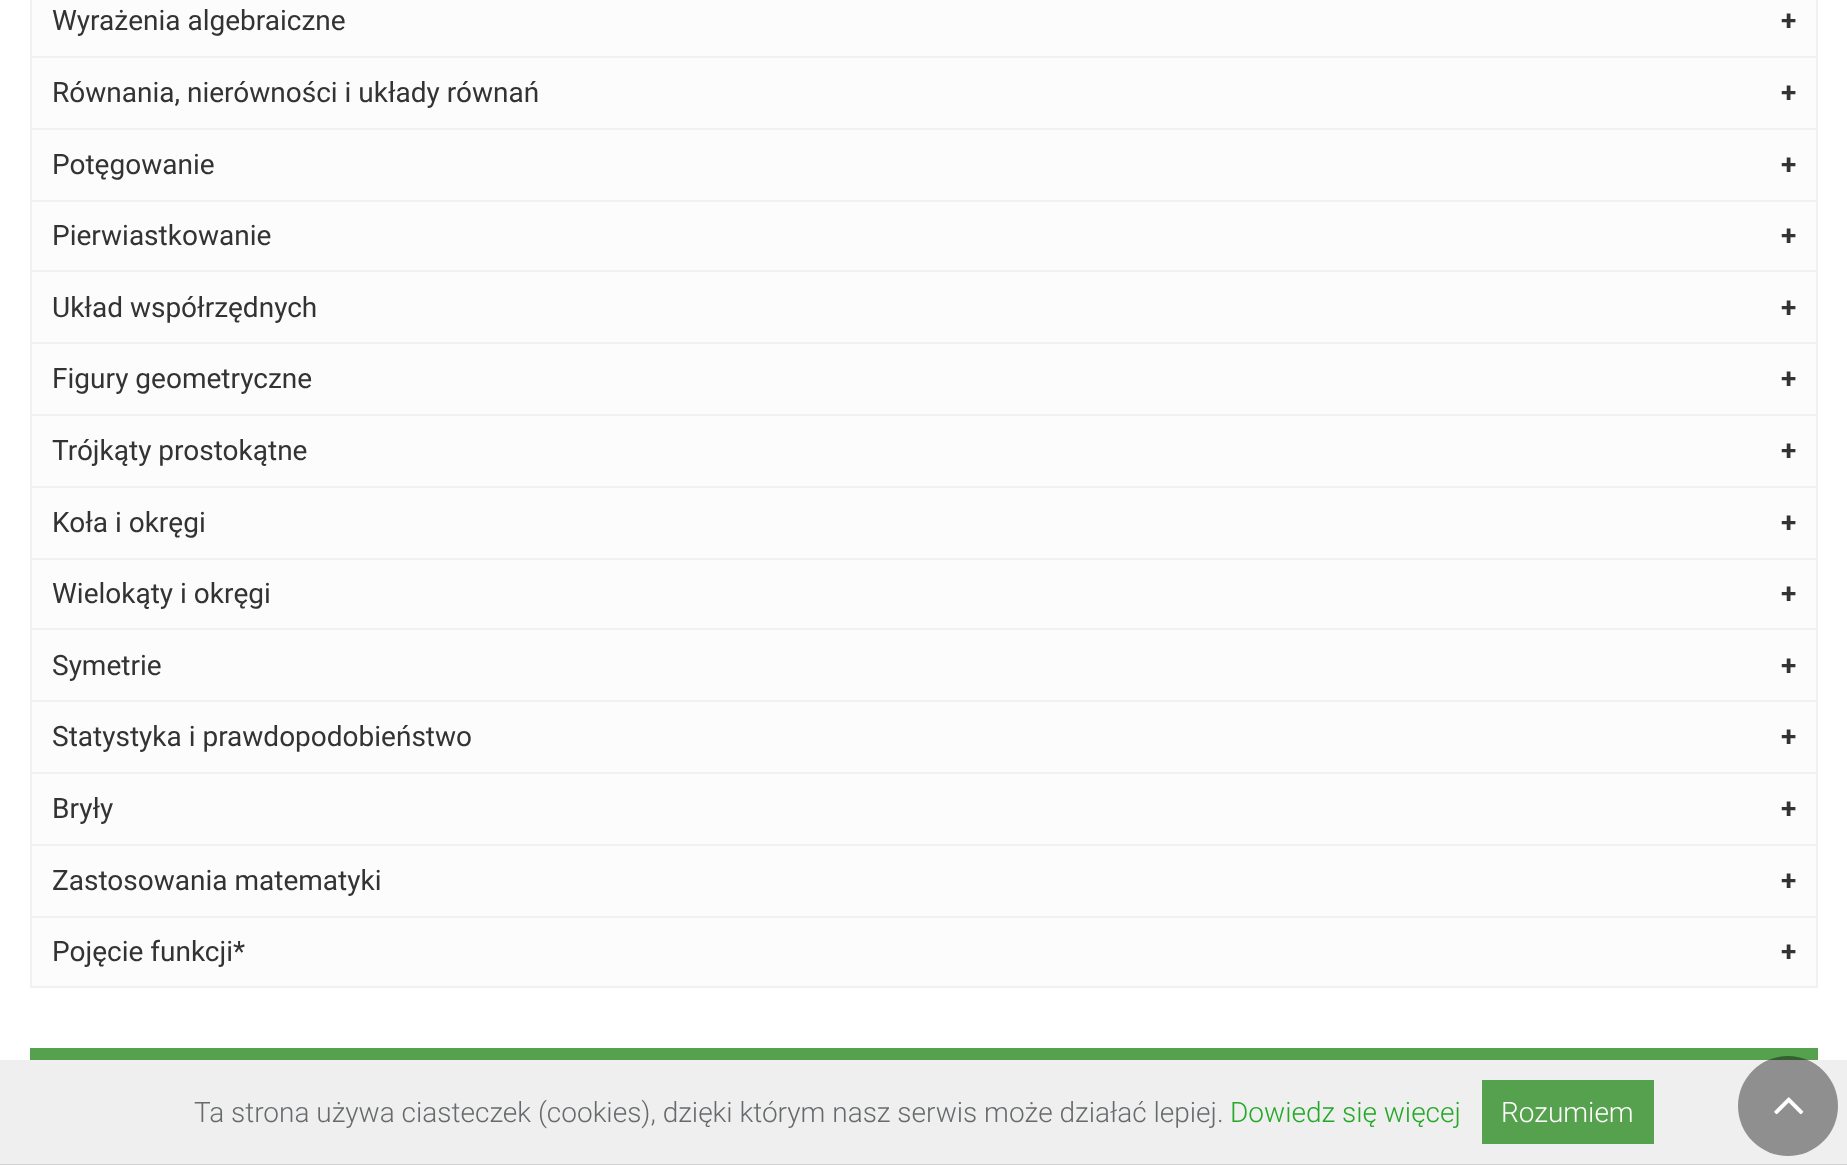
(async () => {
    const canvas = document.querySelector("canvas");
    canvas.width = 1847;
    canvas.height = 1165;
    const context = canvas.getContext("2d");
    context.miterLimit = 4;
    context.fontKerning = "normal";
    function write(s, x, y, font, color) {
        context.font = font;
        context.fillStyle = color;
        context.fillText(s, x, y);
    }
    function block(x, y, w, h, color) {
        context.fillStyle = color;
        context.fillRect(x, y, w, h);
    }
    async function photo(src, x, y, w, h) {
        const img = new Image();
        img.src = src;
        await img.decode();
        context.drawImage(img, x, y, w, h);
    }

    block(0, 0, 1847, 1165, "rgb(255, 255, 255)");
    block(32, 0, 1784, 56, "rgb(252, 252, 252)");
    block(1816, 0, 2, 988, "rgb(241, 241, 241)");
    block(30, 56, 1788, 2, "rgb(241, 241, 241)");
    block(30, 0, 2, 58, "rgb(241, 241, 241)");
    write("Wyrażenia algebraiczne", 52, 30, "28px Roboto", "rgb(51, 51, 51)");
    write("+", 1781, 30, "bold 28px Roboto", "rgb(51, 51, 51)");
    block(32, 58, 1784, 70, "rgb(252, 252, 252)");
    block(30, 128, 1788, 2, "rgb(241, 241, 241)");
    block(30, 58, 2, 72, "rgb(241, 241, 241)");
    write("Równania, nierówności i układy równań", 52, 102, "28px Roboto", "rgb(51, 51, 51)");
    write("+", 1781, 102, "bold 28px Roboto", "rgb(51, 51, 51)");
    block(32, 130, 1784, 70, "rgb(252, 252, 252)");
    block(30, 200, 1788, 2, "rgb(241, 241, 241)");
    block(30, 130, 2, 72, "rgb(241, 241, 241)");
    write("Potęgowanie", 52, 174, "28px Roboto", "rgb(51, 51, 51)");
    write("+", 1781, 174, "bold 28px Roboto", "rgb(51, 51, 51)");
    block(32, 202, 1784, 68, "rgb(252, 252, 252)");
    block(30, 270, 1788, 2, "rgb(241, 241, 241)");
    block(30, 202, 2, 70, "rgb(241, 241, 241)");
    write("Pierwiastkowanie", 52, 245, "28px Roboto", "rgb(51, 51, 51)");
    write("+", 1781, 245, "bold 28px Roboto", "rgb(51, 51, 51)");
    block(32, 272, 1784, 70, "rgb(252, 252, 252)");
    block(30, 342, 1788, 2, "rgb(241, 241, 241)");
    block(30, 272, 2, 72, "rgb(241, 241, 241)");
    write("Układ współrzędnych", 52, 317, "28px Roboto", "rgb(51, 51, 51)");
    write("+", 1781, 317, "bold 28px Roboto", "rgb(51, 51, 51)");
    block(32, 344, 1784, 70, "rgb(252, 252, 252)");
    block(30, 414, 1788, 2, "rgb(241, 241, 241)");
    block(30, 344, 2, 72, "rgb(241, 241, 241)");
    write("Figury geometryczne", 52, 388, "28px Roboto", "rgb(51, 51, 51)");
    write("+", 1781, 388, "bold 28px Roboto", "rgb(51, 51, 51)");
    block(32, 416, 1784, 70, "rgb(252, 252, 252)");
    block(30, 486, 1788, 2, "rgb(241, 241, 241)");
    block(30, 416, 2, 72, "rgb(241, 241, 241)");
    write("Trójkąty prostokątne", 52, 460, "28px Roboto", "rgb(51, 51, 51)");
    write("+", 1781, 460, "bold 28px Roboto", "rgb(51, 51, 51)");
    block(32, 488, 1784, 70, "rgb(252, 252, 252)");
    block(30, 558, 1788, 2, "rgb(241, 241, 241)");
    block(30, 488, 2, 72, "rgb(241, 241, 241)");
    write("Koła i okręgi", 52, 532, "28px Roboto", "rgb(51, 51, 51)");
    write("+", 1781, 532, "bold 28px Roboto", "rgb(51, 51, 51)");
    block(32, 560, 1784, 68, "rgb(252, 252, 252)");
    block(30, 628, 1788, 2, "rgb(241, 241, 241)");
    block(30, 560, 2, 70, "rgb(241, 241, 241)");
    write("Wielokąty i okręgi", 52, 603, "28px Roboto", "rgb(51, 51, 51)");
    write("+", 1781, 603, "bold 28px Roboto", "rgb(51, 51, 51)");
    block(32, 630, 1784, 70, "rgb(252, 252, 252)");
    block(30, 700, 1788, 2, "rgb(241, 241, 241)");
    block(30, 630, 2, 72, "rgb(241, 241, 241)");
    write("Symetrie", 52, 675, "28px Roboto", "rgb(51, 51, 51)");
    write("+", 1781, 675, "bold 28px Roboto", "rgb(51, 51, 51)");
    block(32, 702, 1784, 70, "rgb(252, 252, 252)");
    block(30, 772, 1788, 2, "rgb(241, 241, 241)");
    block(30, 702, 2, 72, "rgb(241, 241, 241)");
    write("Statystyka i prawdopodobieństwo", 52, 746, "28px Roboto", "rgb(51, 51, 51)");
    write("+", 1781, 746, "bold 28px Roboto", "rgb(51, 51, 51)");
    block(32, 774, 1784, 70, "rgb(252, 252, 252)");
    block(30, 844, 1788, 2, "rgb(241, 241, 241)");
    block(30, 774, 2, 72, "rgb(241, 241, 241)");
    write("Bryły", 52, 818, "28px Roboto", "rgb(51, 51, 51)");
    write("+", 1781, 818, "bold 28px Roboto", "rgb(51, 51, 51)");
    block(32, 846, 1784, 70, "rgb(252, 252, 252)");
    block(30, 916, 1788, 2, "rgb(241, 241, 241)");
    block(30, 846, 2, 72, "rgb(241, 241, 241)");
    write("Zastosowania matematyki", 52, 890, "28px Roboto", "rgb(51, 51, 51)");
    write("+", 1781, 890, "bold 28px Roboto", "rgb(51, 51, 51)");
    block(32, 918, 1784, 68, "rgb(252, 252, 252)");
    block(30, 986, 1788, 2, "rgb(241, 241, 241)");
    block(30, 918, 2, 70, "rgb(241, 241, 241)");
    write("Pojęcie funkcji*", 52, 961, "28px Roboto", "rgb(51, 51, 51)");
    write("+", 1781, 961, "bold 28px Roboto", "rgb(51, 51, 51)");
    block(30, 1048, 1788, 12, "rgb(86, 161, 77)");
    block(0, 1060, 1847, 104, "rgb(239, 239, 239)");
    block(0, 1164, 1847, 1, "rgb(211, 208, 208)");
    write("Ta strona używa ciasteczek (cookies), dzięki którym nasz serwis może działać lepiej.", 194, 1122, "300 28px Roboto", "rgb(103, 106, 108)");
    write("Dowiedz się więcej", 1230, 1122, "300 28px Roboto", "rgb(36, 168, 40)");
    block(1482, 1080, 172, 64, "rgb(86, 161, 77)");
    write("Rozumiem", 1501, 1122, "300 28px Roboto", "rgb(255, 255, 255)");
    context.fillStyle = "rgba(0, 0, 0, 0.4)";
    context.beginPath();
    context.arc(1788, 1106, 50, 0, Math.PI * 2);
    context.fill();
    await photo("media/1.png", 1774, 1097, 30, 18);
})();
